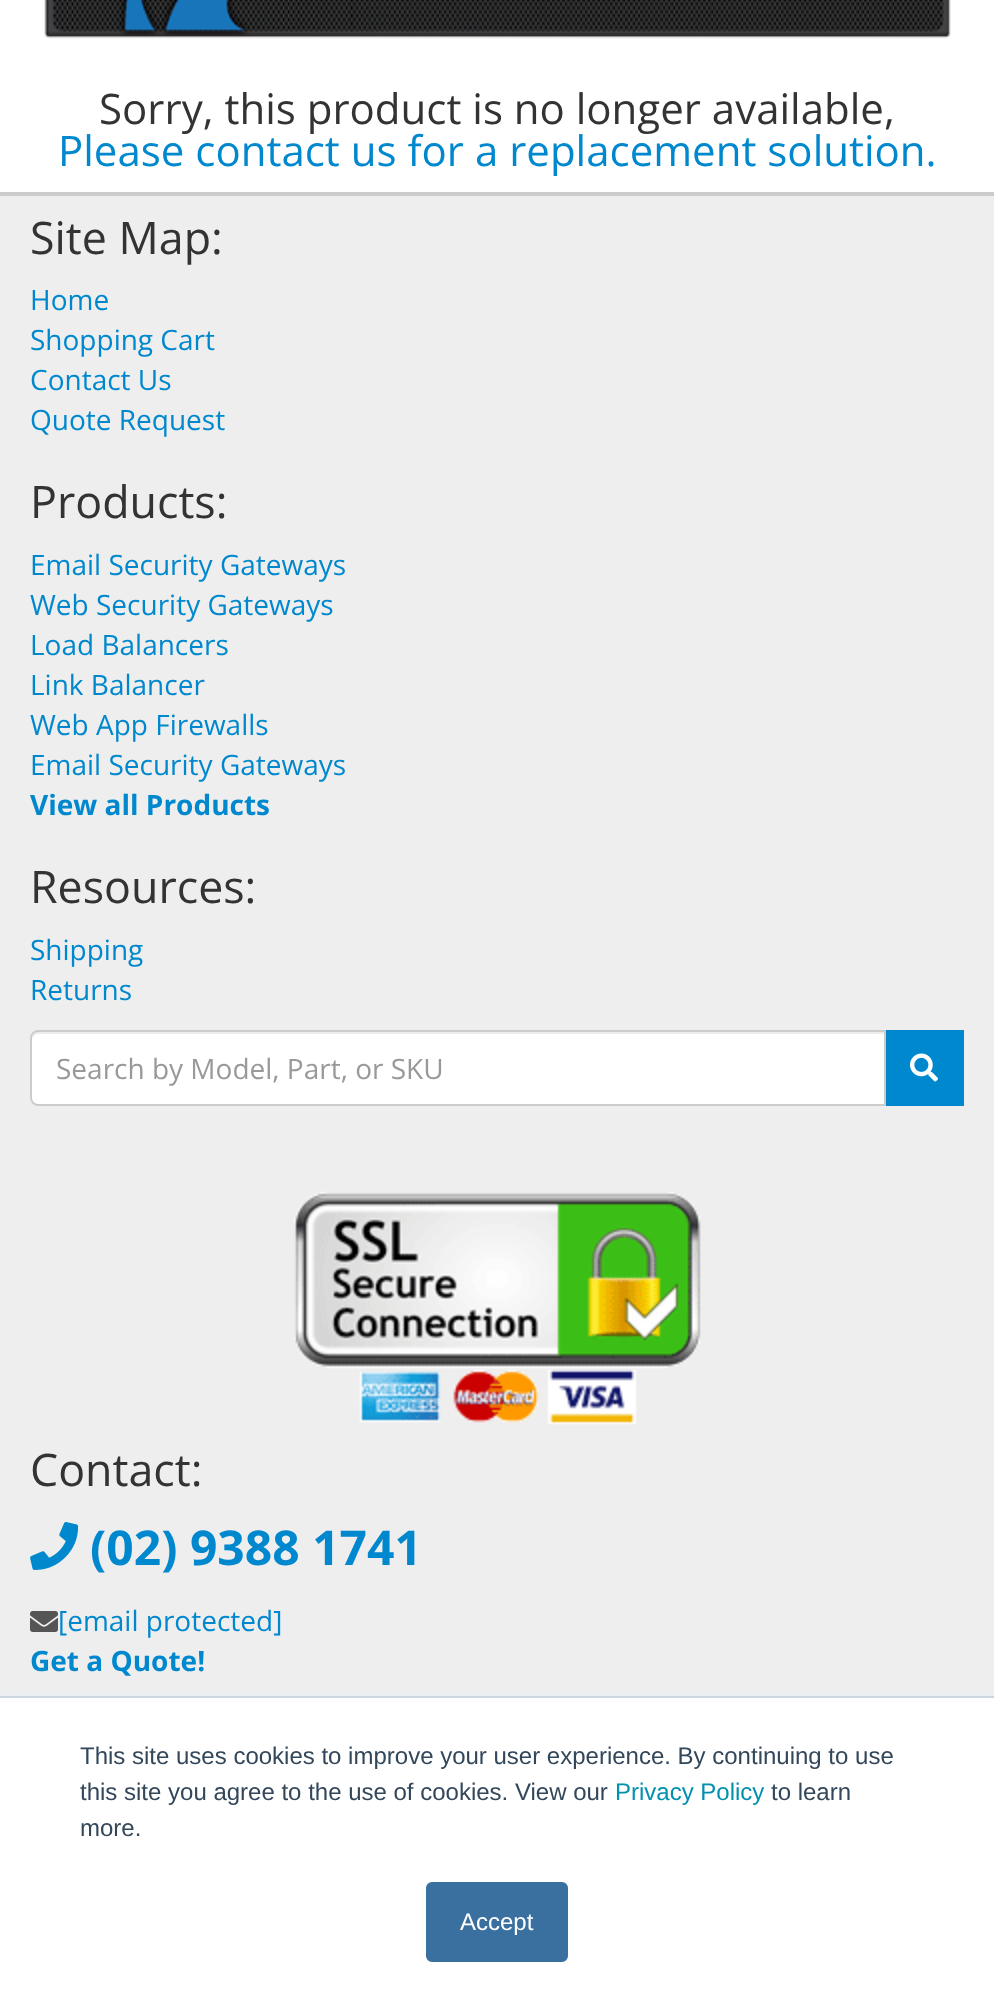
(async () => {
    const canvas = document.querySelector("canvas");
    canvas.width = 994;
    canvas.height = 2013;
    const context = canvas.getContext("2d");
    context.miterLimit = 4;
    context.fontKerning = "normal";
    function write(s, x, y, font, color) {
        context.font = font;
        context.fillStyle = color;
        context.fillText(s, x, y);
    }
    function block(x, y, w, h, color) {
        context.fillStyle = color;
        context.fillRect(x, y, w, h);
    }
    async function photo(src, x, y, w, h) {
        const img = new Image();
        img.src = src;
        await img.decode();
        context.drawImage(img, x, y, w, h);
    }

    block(0, 0, 994, 2013, "rgb(255, 255, 255)");
    await photo("media/1.png", 44, 0, 907, 39);
    write("Sorry, this product is no longer available,", 99, 124, "42px Open Sans", "rgb(51, 51, 51)");
    write("Please contact us for a replacement solution.", 58, 166, "42px Open Sans", "rgb(0, 136, 206)");
    block(0, 196, 994, 1500, "rgb(238, 238, 238)");
    block(0, 192, 994, 4, "rgb(204, 204, 204)");
    write("Site Map:", 30, 254, "44.75px Open Sans", "rgb(51, 51, 51)");
    write("Home", 30, 310, "28px Open Sans", "rgb(0, 136, 206)");
    write("Shopping Cart", 30, 350, "28px Open Sans", "rgb(0, 136, 206)");
    write("Contact Us", 30, 390, "28px Open Sans", "rgb(0, 136, 206)");
    write("Quote Request", 30, 430, "28px Open Sans", "rgb(0, 136, 206)");
    write("Products:", 30, 518, "44.75px Open Sans", "rgb(51, 51, 51)");
    write("Email Security Gateways", 30, 575, "28px Open Sans", "rgb(0, 136, 206)");
    write("Web Security Gateways", 30, 615, "28px Open Sans", "rgb(0, 136, 206)");
    write("Load Balancers", 30, 655, "28px Open Sans", "rgb(0, 136, 206)");
    write("Link Balancer", 30, 695, "28px Open Sans", "rgb(0, 136, 206)");
    write("Web App Firewalls", 30, 735, "28px Open Sans", "rgb(0, 136, 206)");
    write("Email Security Gateways", 30, 775, "28px Open Sans", "rgb(0, 136, 206)");
    write("View all Products", 30, 815, "bold 28px Open Sans", "rgb(0, 136, 206)");
    write("Resources:", 30, 903, "44.75px Open Sans", "rgb(51, 51, 51)");
    write("Shipping", 30, 960, "28px Open Sans", "rgb(0, 136, 206)");
    write("Returns", 30, 1000, "28px Open Sans", "rgb(0, 136, 206)");
    context.fillStyle = "rgb(255, 255, 255)";
    context.beginPath();
    context.roundRect(30, 1030, 856, 76, [8, 0, 0, 8]);
    context.fill();
    context.fillStyle = "rgb(236, 236, 236)";
    context.beginPath();
    context.moveTo(38, 1034);
    context.lineTo(884, 1034);
    context.lineTo(884, 1032);
    context.lineTo(38, 1032);
    context.bezierCurveTo(33, 1032, 32, 1036, 32, 1040);
    context.bezierCurveTo(32, 1037, 35, 1034, 38, 1034);
    context.closePath();
    context.fill();
    context.beginPath();
    context.roundRect(31, 1031, 854, 74, [7, 0, 0, 7]);
    context.strokeStyle = "rgb(204, 204, 204)";
    context.lineWidth = 2;
    context.stroke();
    write("Search by Model, Part, or SKU", 56, 1079, "28px Open Sans", "rgb(153, 153, 153)");
    block(886, 1030, 78, 76, "rgb(0, 136, 206)");
    await photo("media/2.png", 910, 1053, 28, 29);
    await photo("media/3.png", 293, 1191, 408, 234);
    write("Contact:", 30, 1486, "44.75px Open Sans", "rgb(51, 51, 51)");
    await photo("media/4.png", 30, 1522, 49, 48);
    write("(02) 9388 1741", 90, 1565, "bold 48px Open Sans", "rgb(0, 136, 206)");
    await photo("media/5.png", 30, 1611, 28, 21);
    write("[email protected]", 58, 1631, "28px Open Sans", "rgb(0, 136, 206)");
    write("Get a Quote!", 30, 1671, "bold 28px Open Sans", "rgb(0, 136, 206)");
    context.fillStyle = "rgb(234, 240, 246)";
    context.filter = "blur(3px)";
    context.beginPath();
    context.rect(0, 1694, 994, 318);
    context.fill();
    context.filter = "none";
    block(0, 1698, 994, 315, "rgb(255, 255, 255)");
    block(0, 1696, 994, 2, "rgb(203, 214, 226)");
    write("This site uses cookies to improve your user experience. By continuing to use", 80, 1764, "24px Liberation Sans", "rgb(51, 71, 91)");
    write("this site you agree to the use of cookies. View our", 80, 1800, "24px Liberation Sans", "rgb(51, 71, 91)");
    write("Privacy Policy", 615, 1800, "24px Liberation Sans", "rgb(0, 145, 174)");
    write("to learn", 771, 1800, "24px Liberation Sans", "rgb(51, 71, 91)");
    write("more.", 80, 1836, "24px Liberation Sans", "rgb(51, 71, 91)");
    context.fillStyle = "rgb(57, 112, 159)";
    context.beginPath();
    context.roundRect(427, 1883, 140, 78, 5);
    context.fill();
    context.strokeStyle = "rgb(57, 112, 159)";
    context.stroke();
    write("Accept", 460, 1930, "24px Liberation Sans", "rgb(255, 255, 255)");
})();
